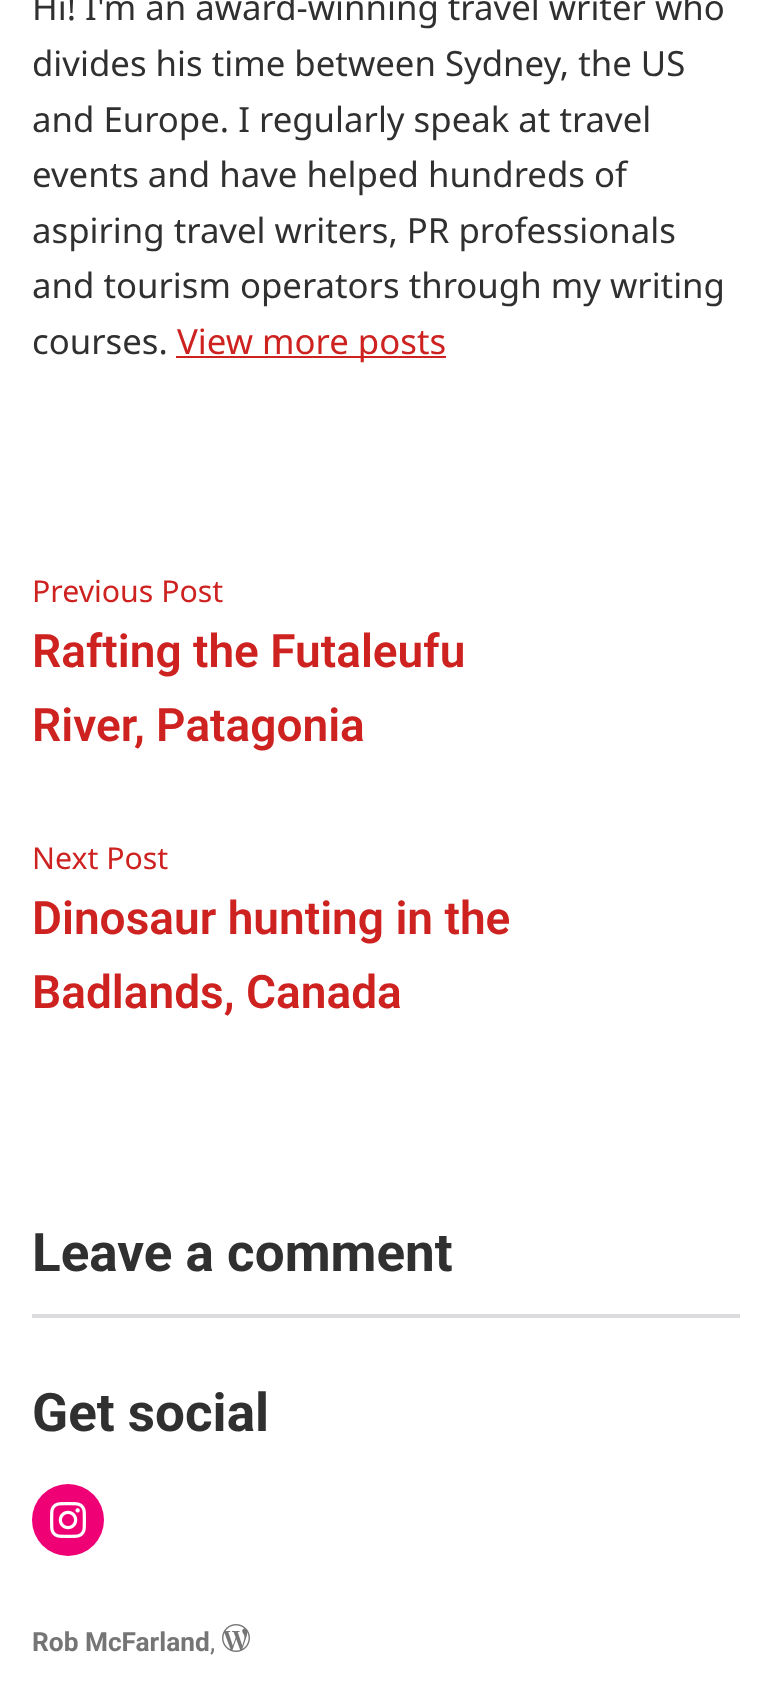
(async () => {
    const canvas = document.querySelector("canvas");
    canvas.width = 771;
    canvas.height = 1695;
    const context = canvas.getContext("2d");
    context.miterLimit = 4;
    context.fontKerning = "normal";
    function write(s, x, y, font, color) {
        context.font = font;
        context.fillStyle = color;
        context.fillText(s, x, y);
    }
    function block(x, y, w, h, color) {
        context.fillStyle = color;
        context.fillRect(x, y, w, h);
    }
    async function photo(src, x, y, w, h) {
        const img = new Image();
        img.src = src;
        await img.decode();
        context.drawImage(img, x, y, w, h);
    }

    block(0, 0, 771, 1695, "rgb(255, 255, 255)");
    write("Hi! I'm an award-winning travel writer who", 32, 20, "34.75px Noto Sans", "rgb(48, 48, 48)");
    write("divides his time between Sydney, the US", 32, 76, "34.75px Noto Sans", "rgb(48, 48, 48)");
    write("and Europe. I regularly speak at travel", 32, 132, "34.75px Noto Sans", "rgb(48, 48, 48)");
    write("events and have helped hundreds of", 32, 187, "34.75px Noto Sans", "rgb(48, 48, 48)");
    write("aspiring travel writers, PR professionals", 32, 243, "34.75px Noto Sans", "rgb(48, 48, 48)");
    write("and tourism operators through my writing", 32, 298, "34.75px Noto Sans", "rgb(48, 48, 48)");
    write("courses.", 32, 354, "34.75px Noto Sans", "rgb(48, 48, 48)");
    block(176, 356, 270, 2, "rgb(205, 34, 32)");
    write("View more posts", 177, 354, "34.75px Noto Sans", "rgb(205, 34, 32)");
    write("Previous Post", 32, 602, "30.25px Noto Sans", "rgb(205, 34, 32)");
    write("Rafting the Futaleufu", 32, 667, "600 46px Roboto", "rgb(205, 34, 32)");
    write("River, Patagonia", 32, 741, "600 46px Roboto", "rgb(205, 34, 32)");
    write("Next Post", 32, 869, "30.25px Noto Sans", "rgb(205, 34, 32)");
    write("Dinosaur hunting in the", 32, 934, "600 46px Roboto", "rgb(205, 34, 32)");
    write("Badlands, Canada", 32, 1008, "600 46px Roboto", "rgb(205, 34, 32)");
    write("Leave a comment", 32, 1271, "bold 53px Roboto", "rgb(48, 48, 48)");
    block(32, 1314, 708, 4, "rgb(220, 220, 222)");
    write("Get social", 32, 1431, "bold 53px Roboto", "rgb(48, 48, 48)");
    context.fillStyle = "rgb(240, 0, 117)";
    context.beginPath();
    context.arc(68, 1520, 36, 0, Math.PI * 2);
    context.fill();
    await photo("media/1.png", 50, 1502, 36, 36);
    write("Rob McFarland", 32, 1651, "bold 26.25px Roboto", "rgb(117, 117, 117)");
    write(",", 210, 1651, "26.25px Roboto", "rgb(117, 117, 117)");
    await photo("media/2.png", 222, 1624, 28, 28);
})();
